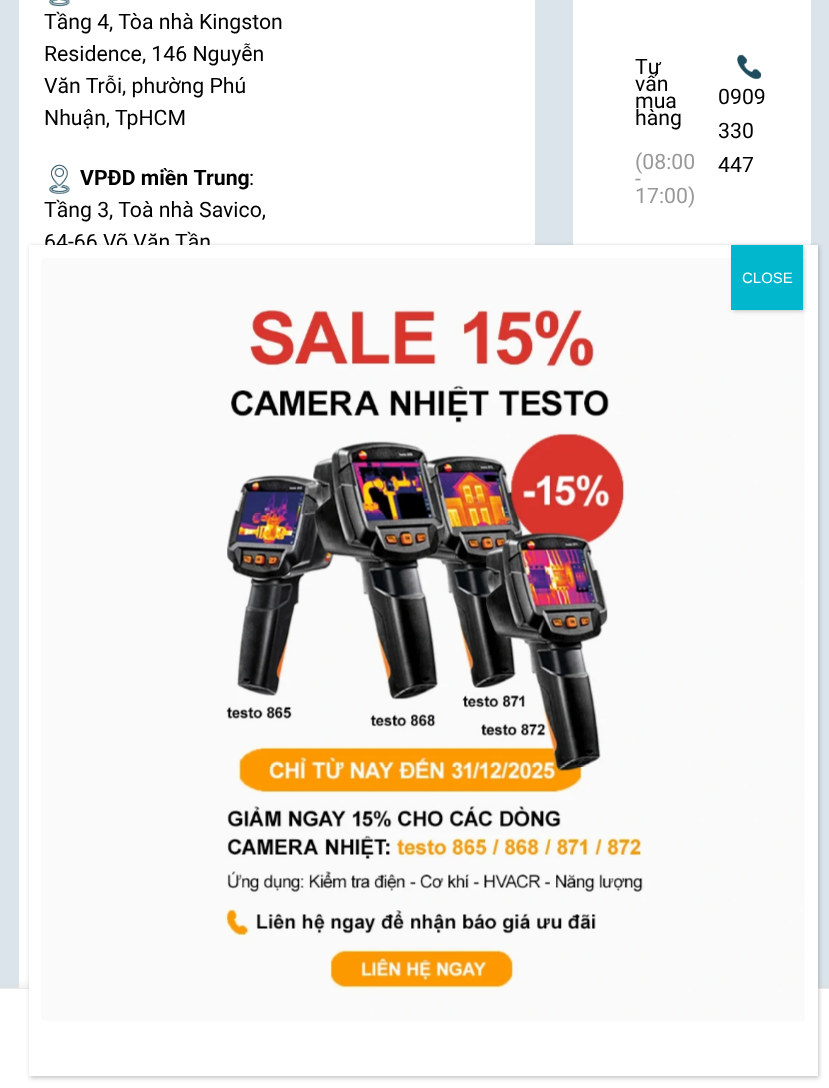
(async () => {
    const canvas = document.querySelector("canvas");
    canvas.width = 829;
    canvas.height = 1088;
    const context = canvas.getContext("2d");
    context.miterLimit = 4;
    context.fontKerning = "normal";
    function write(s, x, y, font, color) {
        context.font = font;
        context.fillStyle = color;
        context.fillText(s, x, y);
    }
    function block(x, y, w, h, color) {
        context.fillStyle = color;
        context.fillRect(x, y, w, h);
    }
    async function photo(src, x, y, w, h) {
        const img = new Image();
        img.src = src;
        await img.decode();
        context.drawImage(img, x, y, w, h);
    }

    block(0, 0, 829, 1088, "rgb(218, 228, 234)");
    block(19, 0, 516, 988, "rgb(255, 255, 255)");
    await photo("media/1.png", 49, 0, 21, 7);
    write("Tầng 4, Tòa nhà Kingston", 44, 29, "21.25px Roboto", "rgb(0, 0, 0)");
    write("Residence, 146 Nguyễn", 44, 61, "21.25px Roboto", "rgb(0, 0, 0)");
    write("Văn Trỗi, phường Phú", 44, 93, "21.25px Roboto", "rgb(0, 0, 0)");
    write("Nhuận, TpHCM", 44, 125, "21.25px Roboto", "rgb(0, 0, 0)");
    await photo("media/2.png", 49, 164, 21, 30);
    write("VPĐD miền Trung", 80, 185, "bold 21.25px Roboto", "rgb(0, 0, 0)");
    write(":", 249, 185, "21.25px Roboto", "rgb(0, 0, 0)");
    write("Tầng 3, Toà nhà Savico,", 44, 217, "21.25px Roboto", "rgb(0, 0, 0)");
    write("64-66 Võ Văn Tần", 44, 249, "21.25px Roboto", "rgb(0, 0, 0)");
    block(573, 0, 238, 245, "rgb(255, 255, 255)");
    write("Tư", 635, 74, "21.25px Roboto", "rgb(0, 0, 0)");
    write("vấn", 635, 91, "21.25px Roboto", "rgb(0, 0, 0)");
    write("mua", 635, 108, "21.25px Roboto", "rgb(0, 0, 0)");
    write("hàng", 635, 125, "21.25px Roboto", "rgb(0, 0, 0)");
    write("(08:00", 635, 169, "21.25px Roboto", "rgb(153, 153, 153)");
    write("-", 635, 186, "21.25px Roboto", "rgb(153, 153, 153)");
    write("17:00)", 635, 203, "21.25px Roboto", "rgb(153, 153, 153)");
    await photo("media/3.png", 737, 54, 25, 26);
    write("0909", 718, 104, "21.25px Roboto", "rgb(0, 0, 0)");
    write("330", 718, 138, "21.25px Roboto", "rgb(0, 0, 0)");
    write("447", 718, 172, "21.25px Roboto", "rgb(0, 0, 0)");
    context.fillStyle = "rgb(222, 222, 222)";
    context.filter = "blur(5.5px)";
    context.beginPath();
    context.rect(3, 989, 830, 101);
    context.fill();
    context.filter = "none";
    block(0, 989, 829, 99, "rgb(255, 255, 255)");
    block(0, 988, 829, 1, "rgb(234, 234, 234)");
    context.fillStyle = "rgba(2, 2, 2, 0.23)";
    context.filter = "blur(2px)";
    context.beginPath();
    context.rect(30, 246, 789, 832);
    context.fill();
    context.filter = "none";
    block(29, 245, 789, 831, "rgb(255, 255, 255)");
    await photo("media/4.png", 41, 258, 764, 763);
    context.fillStyle = "rgba(2, 2, 2, 0.23)";
    context.filter = "blur(2px)";
    context.beginPath();
    context.rect(733, 246, 71, 65);
    context.fill();
    context.filter = "none";
    block(731, 245, 72, 65, "rgb(0, 183, 205)");
    write("CLOSE", 742, 283, "15px Liberation Sans", "rgb(255, 255, 255)");
})();
